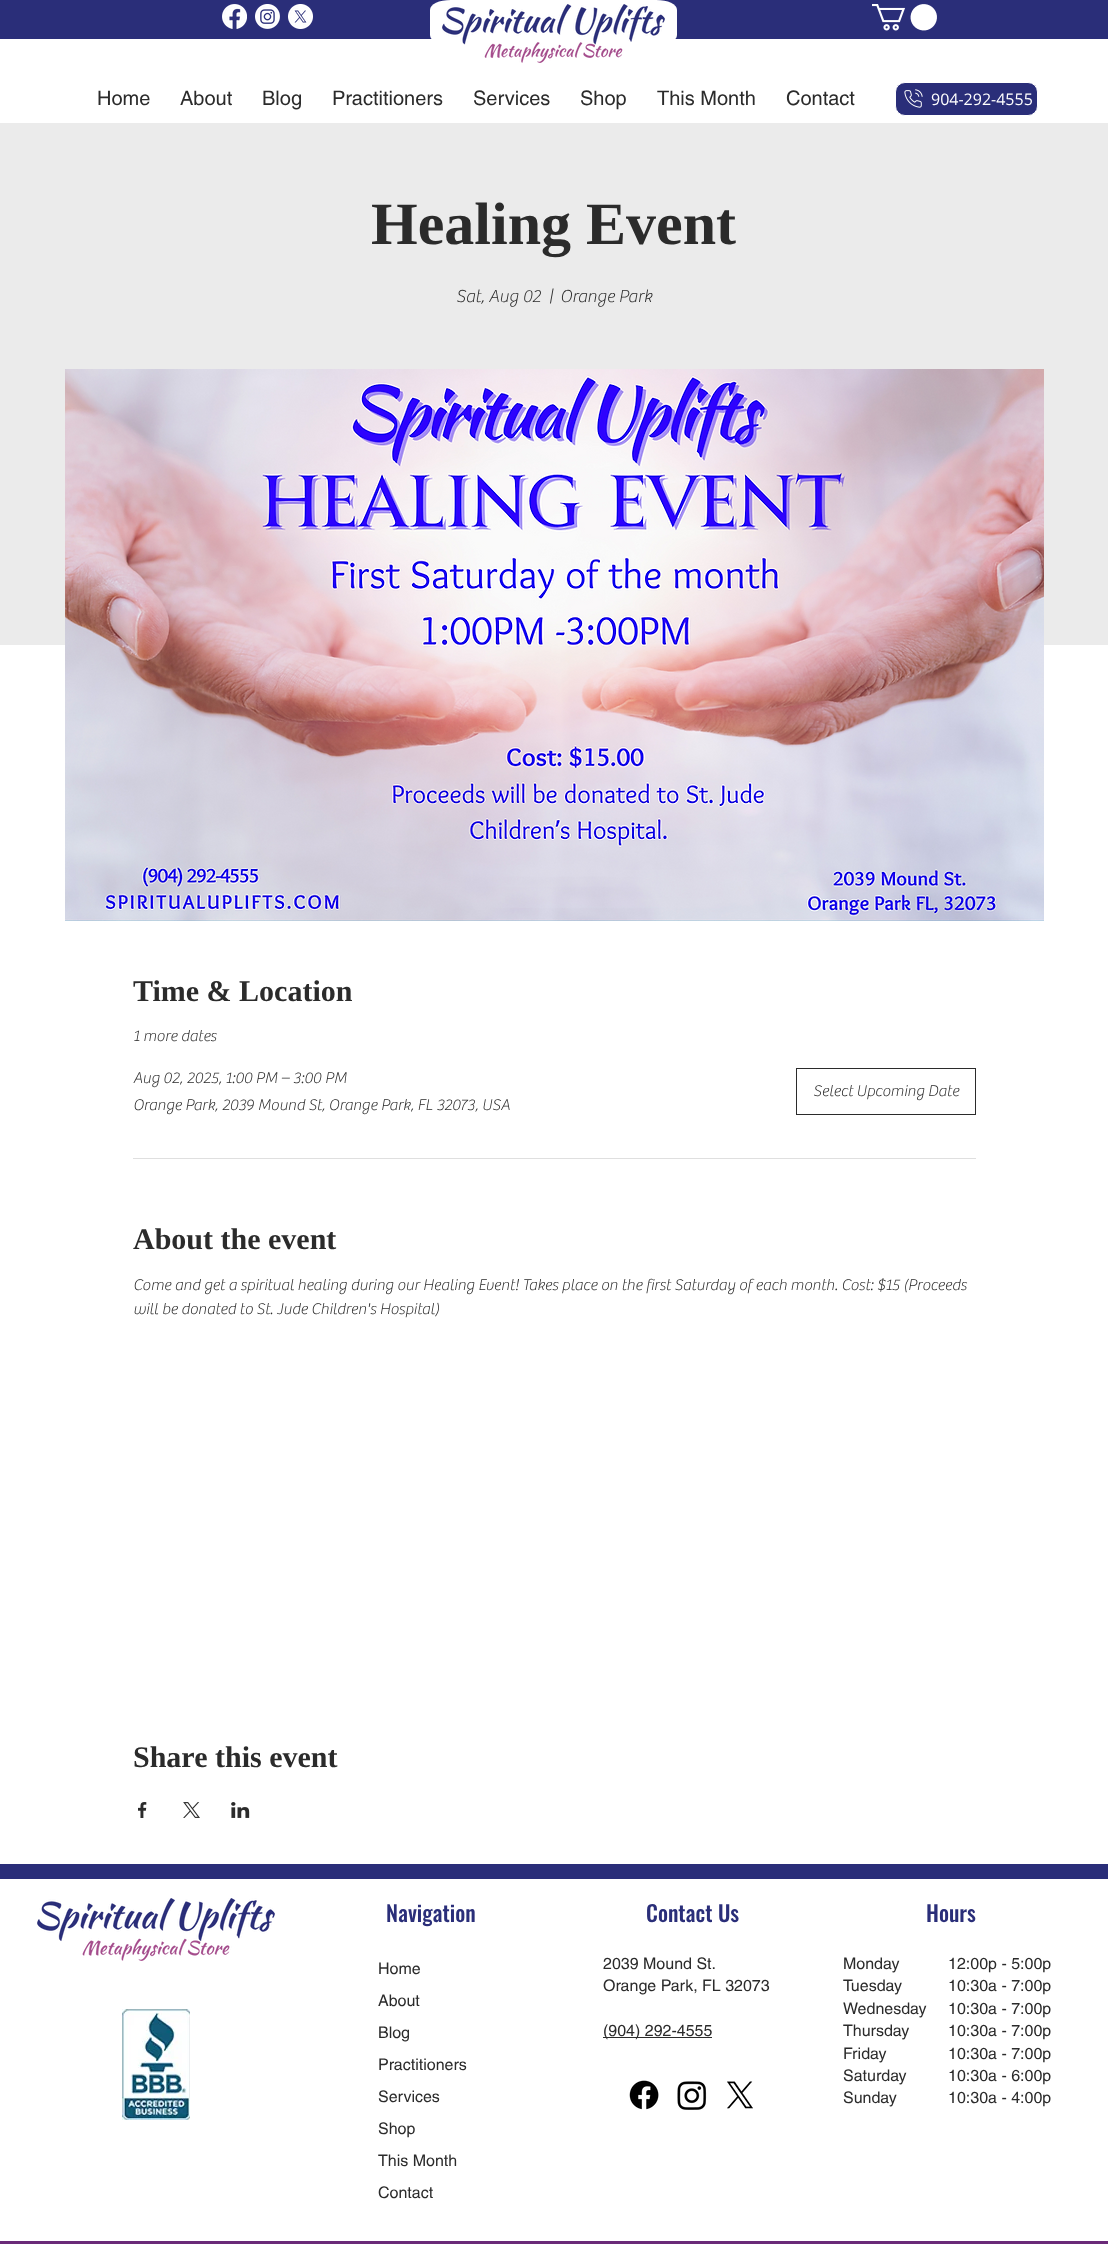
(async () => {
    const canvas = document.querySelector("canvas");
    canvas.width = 1108;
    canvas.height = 2244;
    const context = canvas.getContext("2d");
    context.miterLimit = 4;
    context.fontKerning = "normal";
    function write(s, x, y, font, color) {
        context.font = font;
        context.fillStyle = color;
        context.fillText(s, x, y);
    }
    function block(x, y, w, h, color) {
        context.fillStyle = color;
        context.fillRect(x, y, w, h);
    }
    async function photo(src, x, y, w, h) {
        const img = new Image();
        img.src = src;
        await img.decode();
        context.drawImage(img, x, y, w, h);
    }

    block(0, 0, 1108, 2244, "rgb(255, 255, 255)");
    block(0, 0, 1108, 39, "rgb(42, 46, 121)");
    await photo("media/1.png", 222, 4, 25, 25);
    await photo("media/2.png", 255, 4, 25, 25);
    await photo("media/3.png", 288, 4, 25, 25);
    context.fillStyle = "rgb(255, 255, 255)";
    context.beginPath();
    context.moveTo(656, 45);
    context.lineTo(451, 45);
    context.bezierCurveTo(439, 45, 430, 41, 430, 35);
    context.lineTo(430, 10);
    context.bezierCurveTo(430, 4, 439, 0, 451, 0);
    context.lineTo(656, 0);
    context.bezierCurveTo(668, 0, 677, 4, 677, 10);
    context.lineTo(677, 35);
    context.bezierCurveTo(677, 41, 668, 45, 656, 45);
    context.closePath();
    context.fill();
    await photo("media/4.png", 872, 4, 65, 27);
    await photo("media/5.png", 442, 4, 223, 59);
    write("Home", 97, 105, "20px helvetica", "rgb(43, 43, 43)");
    write("About", 180, 105, "20px helvetica", "rgb(43, 43, 43)");
    write("Blog", 262, 105, "20px helvetica", "rgb(43, 43, 43)");
    write("Practitioners", 332, 105, "20px helvetica", "rgb(43, 43, 43)");
    write("Services", 473, 105, "20px helvetica", "rgb(43, 43, 43)");
    write("Shop", 580, 105, "20px helvetica", "rgb(43, 43, 43)");
    write("This Month", 657, 105, "20px helvetica", "rgb(43, 43, 43)");
    write("Contact", 786, 105, "20px helvetica", "rgb(43, 43, 43)");
    context.fillStyle = "rgb(42, 46, 121)";
    context.beginPath();
    context.roundRect(895.5, 82.5, 142, 33, 9.5);
    context.fill();
    context.strokeStyle = "rgb(255, 255, 255)";
    context.stroke();
    await photo("media/6.png", 904, 89, 19, 19);
    write("904-292-4555", 931, 105, "16px Open Sans", "rgb(255, 255, 255)");
    block(0, 123, 1108, 522, "rgb(235, 235, 235)");
    write("Healing Event", 371, 244, "bold 60px Liberation Serif", "rgb(43, 43, 43)");
    write("Sat, Aug 02", 456, 302, "100 18px 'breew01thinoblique'", "rgb(43, 43, 43)");
    write("|", 549, 302, "100 18px 'breew01thinoblique'", "rgb(43, 43, 43)");
    write("Orange Park", 560, 302, "100 18px 'breew01thinoblique'", "rgb(43, 43, 43)");
    await photo("media/7.png", 65, 369, 979, 552);
    write("Time & Location", 133, 1001, "bold 30px Liberation Serif", "rgb(43, 43, 43)");
    write("1 more dates", 133, 1041, "100 16px 'breew01thinoblique'", "rgb(43, 43, 43)");
    write("Aug 02, 2025, 1:00 PM – 3:00 PM", 133, 1083, "100 16px 'breew01thinoblique'", "rgb(43, 43, 43)");
    write("Orange Park, 2039 Mound St, Orange Park, FL 32073, USA", 133, 1110, "100 16px 'breew01thinoblique'", "rgb(43, 43, 43)");
    context.strokeStyle = "rgb(43, 43, 43)";
    context.strokeRect(796.5, 1068.5, 179, 46);
    write("Select Upcoming Date", 813, 1096, "100 16px 'breew01thinoblique'", "rgb(43, 43, 43)");
    block(133, 1158, 843, 1, "rgb(223, 223, 223)");
    write("About the event", 133, 1249, "bold 30px Liberation Serif", "rgb(43, 43, 43)");
    write("Come and get a spiritual healing during our Healing Event! Takes place on the first Saturday of each month. Cost: $15 (Proceeds", 133, 1290, "100 16px 'breew01thinoblique'", "rgb(43, 43, 43)");
    write("will be donated to St. Jude Children's Hospital)", 133, 1314, "100 16px 'breew01thinoblique'", "rgb(43, 43, 43)");
    write("Share this event", 133, 1767, "bold 30px Liberation Serif", "rgb(43, 43, 43)");
    await photo("media/8.png", 138, 1802, 9, 16);
    await photo("media/9.png", 183, 1802, 17, 16);
    await photo("media/10.png", 231, 1802, 19, 16);
    block(0, 1864, 1108, 15, "rgb(42, 46, 121)");
    await photo("media/11.png", 37, 1898, 238, 63);
    await photo("media/12.png", 122, 2009, 68, 111);
    write("Navigation", 386, 1922, "500 22px Oswald", "rgb(42, 46, 121)");
    write("Home", 378, 1974, "16px helvetica", "rgb(43, 43, 43)");
    write("About", 378, 2006, "16px helvetica", "rgb(43, 43, 43)");
    write("Blog", 378, 2038, "16px helvetica", "rgb(43, 43, 43)");
    write("Practitioners", 378, 2070, "16px helvetica", "rgb(43, 43, 43)");
    write("Services", 378, 2102, "16px helvetica", "rgb(43, 43, 43)");
    write("Shop", 378, 2134, "16px helvetica", "rgb(43, 43, 43)");
    write("This Month", 378, 2166, "16px helvetica", "rgb(43, 43, 43)");
    write("Contact", 378, 2198, "16px helvetica", "rgb(43, 43, 43)");
    write("Contact Us", 646, 1922, "500 22px Oswald", "rgb(42, 46, 121)");
    write("2039 Mound St.", 603, 1969, "16px helvetica", "rgb(43, 43, 43)");
    write("Orange Park, FL 32073", 603, 1991, "16px helvetica", "rgb(43, 43, 43)");
    block(603, 2037, 109, 1, "rgb(43, 43, 43)");
    write("(904) 292-4555", 603, 2036, "16px helvetica", "rgb(43, 43, 43)");
    await photo("media/13.png", 629, 2080, 30, 30);
    await photo("media/14.png", 677, 2081, 30, 29);
    await photo("media/15.png", 727, 2081, 26, 28);
    write("Hours", 926, 1922, "500 22px Oswald", "rgb(42, 46, 121)");
    write("Monday", 843, 1969, "16px helvetica", "rgb(43, 43, 43)");
    write("Tuesday", 843, 1991, "16px helvetica", "rgb(43, 43, 43)");
    write("Wednesday", 843, 2014, "16px helvetica", "rgb(43, 43, 43)");
    write("Thursday", 843, 2036, "16px helvetica", "rgb(43, 43, 43)");
    write("Friday", 843, 2059, "16px helvetica", "rgb(43, 43, 43)");
    write("Saturday", 843, 2081, "16px helvetica", "rgb(43, 43, 43)");
    write("Sunday", 843, 2103, "16px helvetica", "rgb(43, 43, 43)");
    write("12:00p - 5:00p", 948, 1969, "16px helvetica", "rgb(43, 43, 43)");
    write("10:30a - 7:00p", 948, 1991, "16px helvetica", "rgb(43, 43, 43)");
    write("10:30a - 7:00p", 948, 2014, "16px helvetica", "rgb(43, 43, 43)");
    write("10:30a - 7:00p", 948, 2036, "16px helvetica", "rgb(43, 43, 43)");
    write("10:30a - 7:00p", 948, 2059, "16px helvetica", "rgb(43, 43, 43)");
    write("10:30a - 6:00p", 948, 2081, "16px helvetica", "rgb(43, 43, 43)");
    write("10:30a - 4:00p", 948, 2103, "16px helvetica", "rgb(43, 43, 43)");
    block(0, 2241, 1108, 3, "rgb(106, 42, 120)");
})();
